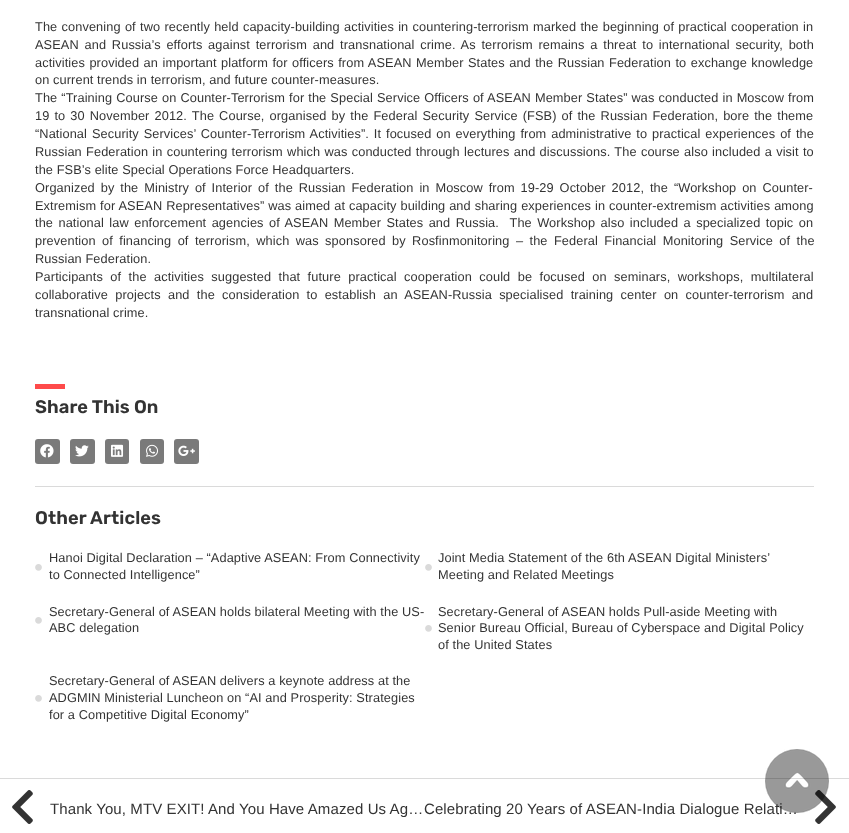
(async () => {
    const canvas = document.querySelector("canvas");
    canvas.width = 849;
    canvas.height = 833;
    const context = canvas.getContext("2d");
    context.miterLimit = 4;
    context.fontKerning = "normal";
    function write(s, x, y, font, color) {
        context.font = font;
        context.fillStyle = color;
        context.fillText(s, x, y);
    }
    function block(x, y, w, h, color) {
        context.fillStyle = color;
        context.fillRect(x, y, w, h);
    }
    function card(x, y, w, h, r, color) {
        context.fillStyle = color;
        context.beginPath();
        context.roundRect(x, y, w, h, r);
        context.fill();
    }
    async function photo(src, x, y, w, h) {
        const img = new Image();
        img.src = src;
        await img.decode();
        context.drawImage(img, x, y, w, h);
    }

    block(0, 0, 849, 833, "rgb(255, 255, 255)");
    context.letterSpacing = "0.1px";
    context.wordSpacing = "0.6px";
    write("The convening of two recently held capacity-building activities in countering-terrorism marked the beginning of practical cooperation in", 35, 31, "12.77px Liberation Sans", "rgb(51, 51, 51)");
    context.wordSpacing = "2.1px";
    write("ASEAN and Russia’s efforts against terrorism and transnational crime. As terrorism remains a threat to international security, both", 35, 49, "12.77px Liberation Sans", "rgb(51, 51, 51)");
    context.wordSpacing = "0.8px";
    write("activities provided an important platform for officers from ASEAN Member States and the Russian Federation to exchange knowledge", 35, 67, "12.77px Liberation Sans", "rgb(51, 51, 51)");
    context.wordSpacing = "0px";
    write("on current trends in terrorism, and future counter-measures.", 35, 84, "12.77px Liberation Sans", "rgb(51, 51, 51)");
    context.wordSpacing = "0.4px";
    write("The “Training Course on Counter-Terrorism for the Special Service Officers of ASEAN Member States” was conducted in Moscow from", 35, 102, "12.77px Liberation Sans", "rgb(51, 51, 51)");
    context.wordSpacing = "1.4px";
    write("19 to 30 November 2012. The Course, organised by the Federal Security Service (FSB) of the Russian Federation, bore the theme", 35, 120, "12.77px Liberation Sans", "rgb(51, 51, 51)");
    context.wordSpacing = "1.25px";
    write("“National Security Services’ Counter-Terrorism Activities”. It focused on everything from administrative to practical experiences of the", 35, 138, "12.77px Liberation Sans", "rgb(51, 51, 51)");
    context.wordSpacing = "0.6px";
    write("Russian Federation in countering terrorism which was conducted through lectures and discussions. The course also included a visit to", 35, 156, "12.77px Liberation Sans", "rgb(51, 51, 51)");
    context.wordSpacing = "0px";
    write("the FSB’s elite Special Operations Force Headquarters.", 35, 174, "12.77px Liberation Sans", "rgb(51, 51, 51)");
    context.wordSpacing = "2.25px";
    write("Organized by the Ministry of Interior of the Russian Federation in Moscow from 19-29 October 2012, the “Workshop on Counter-", 35, 192, "12.77px Liberation Sans", "rgb(51, 51, 51)");
    context.wordSpacing = "0.25px";
    write("Extremism for ASEAN Representatives” was aimed at capacity building and sharing experiences in counter-extremism activities among", 35, 210, "12.77px Liberation Sans", "rgb(51, 51, 51)");
    context.wordSpacing = "1.75px";
    write("the national law enforcement agencies of ASEAN Member States and Russia.  The Workshop also included a specialized topic on", 35, 227, "12.77px Liberation Sans", "rgb(51, 51, 51)");
    context.wordSpacing = "2.75px";
    write("prevention of financing of terrorism, which was sponsored by Rosfinmonitoring – the Federal Financial Monitoring Service of the", 35, 245, "12.77px Liberation Sans", "rgb(51, 51, 51)");
    context.wordSpacing = "0px";
    write("Russian Federation.", 35, 263, "12.77px Liberation Sans", "rgb(51, 51, 51)");
    context.wordSpacing = "3.75px";
    write("Participants of the activities suggested that future practical cooperation could be focused on seminars, workshops, multilateral", 35, 281, "12.77px Liberation Sans", "rgb(51, 51, 51)");
    context.wordSpacing = "3.6px";
    write("collaborative projects and the consideration to establish an ASEAN-Russia specialised training center on counter-terrorism and", 35, 299, "12.77px Liberation Sans", "rgb(51, 51, 51)");
    context.wordSpacing = "0px";
    write("transnational crime.", 35, 317, "12.77px Liberation Sans", "rgb(51, 51, 51)");
    block(35, 384, 30, 5, "rgb(254, 74, 74)");
    write("Share This On", 35, 413, "600 18.25px Rubik", "rgb(51, 51, 51)");
    card(35, 439, 25, 25, 3, "rgb(122, 122, 122)");
    await photo("media/1.png", 40, 444, 14, 14);
    card(70, 439, 25, 25, 3, "rgb(122, 122, 122)");
    await photo("media/2.png", 75, 445, 14, 12);
    card(105, 439, 24, 25, 3, "rgb(122, 122, 122)");
    await photo("media/3.png", 111, 444, 13, 13);
    card(140, 439, 24, 25, 3, "rgb(122, 122, 122)");
    await photo("media/4.png", 146, 444, 12, 13);
    card(174, 439, 25, 25, 3, "rgb(122, 122, 122)");
    await photo("media/5.png", 178, 445, 17, 11);
    block(35, 486, 779, 1, "rgb(218, 218, 218)");
    write("Other Articles", 35, 524, "600 18.25px Rubik", "rgb(51, 51, 51)");
    await photo("media/6.png", 35, 564, 7, 7);
    write("Hanoi Digital Declaration – “Adaptive ASEAN: From Connectivity", 49, 562, "12.77px Liberation Sans", "rgb(51, 51, 51)");
    write("to Connected Intelligence”", 49, 579, "12.77px Liberation Sans", "rgb(51, 51, 51)");
    await photo("media/6.png", 425, 564, 7, 7);
    write("Joint Media Statement of the 6th ASEAN Digital Ministers’", 438, 562, "12.77px Liberation Sans", "rgb(51, 51, 51)");
    write("Meeting and Related Meetings", 438, 579, "12.77px Liberation Sans", "rgb(51, 51, 51)");
    await photo("media/6.png", 35, 617, 7, 7);
    write("Secretary-General of ASEAN holds bilateral Meeting with the US-", 49, 616, "12.77px Liberation Sans", "rgb(51, 51, 51)");
    write("ABC delegation", 49, 632, "12.77px Liberation Sans", "rgb(51, 51, 51)");
    await photo("media/6.png", 425, 625, 7, 7);
    write("Secretary-General of ASEAN holds Pull-aside Meeting with", 438, 616, "12.77px Liberation Sans", "rgb(51, 51, 51)");
    write("Senior Bureau Official, Bureau of Cyberspace and Digital Policy", 438, 632, "12.77px Liberation Sans", "rgb(51, 51, 51)");
    write("of the United States", 438, 649, "12.77px Liberation Sans", "rgb(51, 51, 51)");
    await photo("media/6.png", 35, 695, 7, 7);
    write("Secretary-General of ASEAN delivers a keynote address at the", 49, 685, "12.77px Liberation Sans", "rgb(51, 51, 51)");
    write("ADGMIN Ministerial Luncheon on “AI and Prosperity: Strategies", 49, 702, "12.77px Liberation Sans", "rgb(51, 51, 51)");
    write("for a Competitive Digital Economy”", 49, 719, "12.77px Liberation Sans", "rgb(51, 51, 51)");
    block(0, 778, 849, 1, "rgb(218, 218, 218)");
    await photo("media/7.png", 12, 790, 21, 34);
    write("Thank You, MTV EXIT! And You Have Amazed Us Ag…", 50, 814, "15px Liberation Sans", "rgb(51, 51, 51)");
    write("Celebrating 20 Years of ASEAN-India Dialogue Relati…", 424, 814, "15px Liberation Sans", "rgb(51, 51, 51)");
    await photo("media/8.png", 815, 790, 21, 34);
    await photo("media/9.png", 765, 749, 64, 64);
})();
